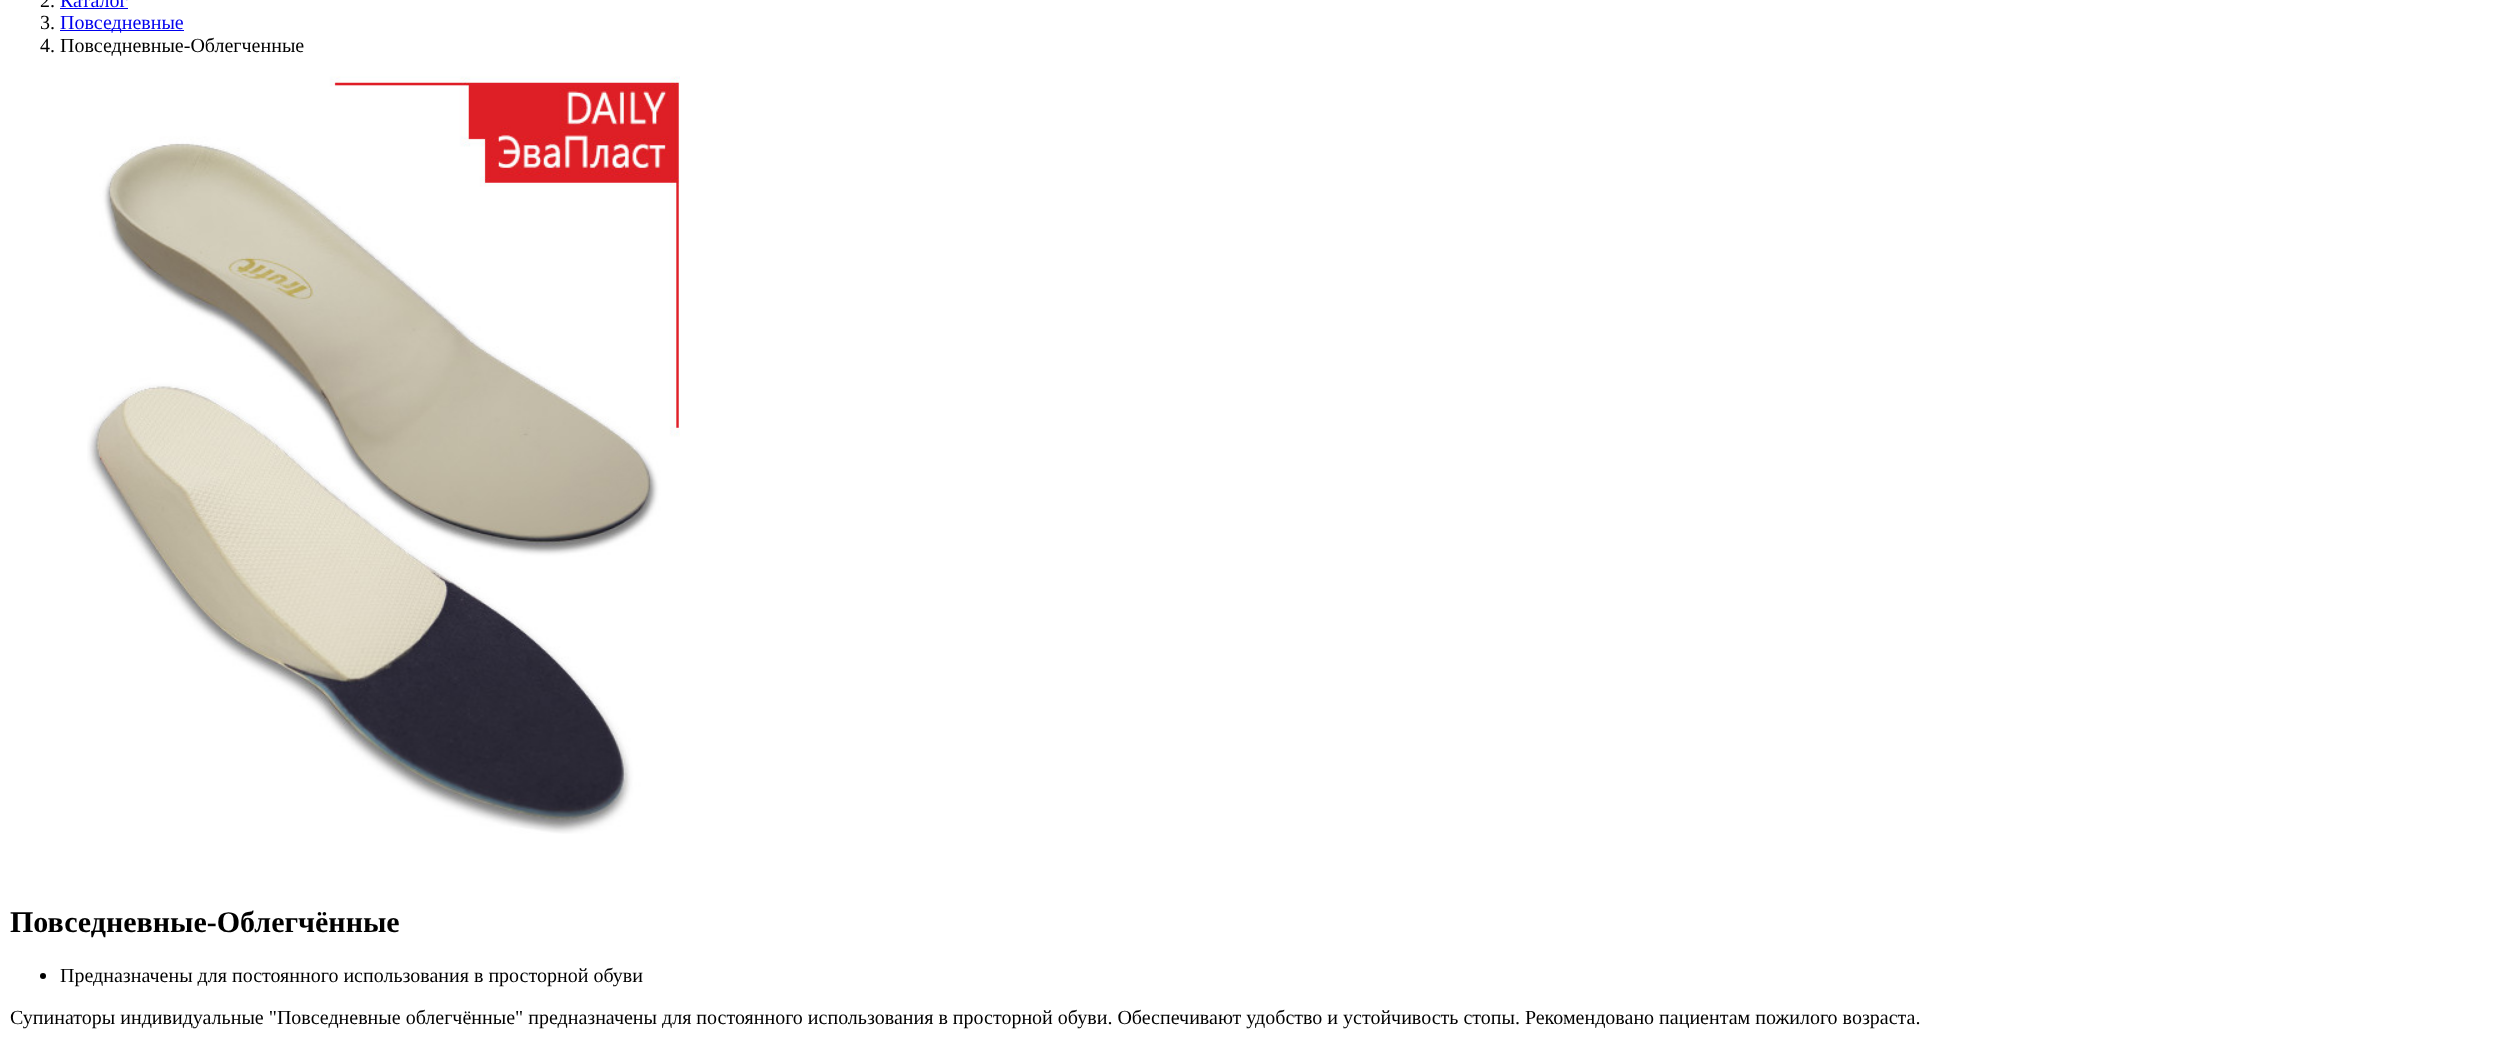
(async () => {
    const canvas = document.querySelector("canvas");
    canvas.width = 2516;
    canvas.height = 1049;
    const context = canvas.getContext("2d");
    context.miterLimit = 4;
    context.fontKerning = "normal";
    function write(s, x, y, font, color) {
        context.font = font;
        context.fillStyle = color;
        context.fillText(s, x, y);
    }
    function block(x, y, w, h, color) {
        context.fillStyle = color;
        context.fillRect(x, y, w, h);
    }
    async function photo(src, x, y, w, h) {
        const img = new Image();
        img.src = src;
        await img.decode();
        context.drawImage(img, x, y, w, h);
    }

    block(0, 0, 2516, 1049, "rgb(255, 255, 255)");
    write("2.", 40, 7, "20px Liberation Serif", "rgb(0, 0, 0)");
    write("Каталог", 60, 7, "20px Liberation Serif", "rgb(0, 0, 238)");
    block(60, 8, 68, 1, "rgb(0, 0, 238)");
    write("3.", 40, 29, "20px Liberation Serif", "rgb(0, 0, 0)");
    block(60, 30, 124, 1, "rgb(0, 0, 238)");
    write("Повседневные", 60, 29, "20px Liberation Serif", "rgb(0, 0, 238)");
    write("4. Повседневные-Облегченные", 40, 52, "20px Liberation Serif", "rgb(0, 0, 0)");
    await photo("media/1.png", 87, 76, 593, 758);
    write("Повседневные-Облегчённые", 10, 932, "bold 30px Liberation Serif", "rgb(0, 0, 0)");
    context.beginPath();
    context.arc(43, 976, 3, 0, Math.PI * 2);
    context.fill();
    write("Предназначены для постоянного использования в просторной обуви", 60, 982, "20px Liberation Serif", "rgb(0, 0, 0)");
    write("Супинаторы индивидуальные \"Повседневные облегчённые\" предназначены для постоянного использования в просторной обуви. Обеспечивают удобство и устойчивость стопы. Рекомендовано пациентам пожилого возраста.", 10, 1024, "20px Liberation Serif", "rgb(0, 0, 0)");
})();
